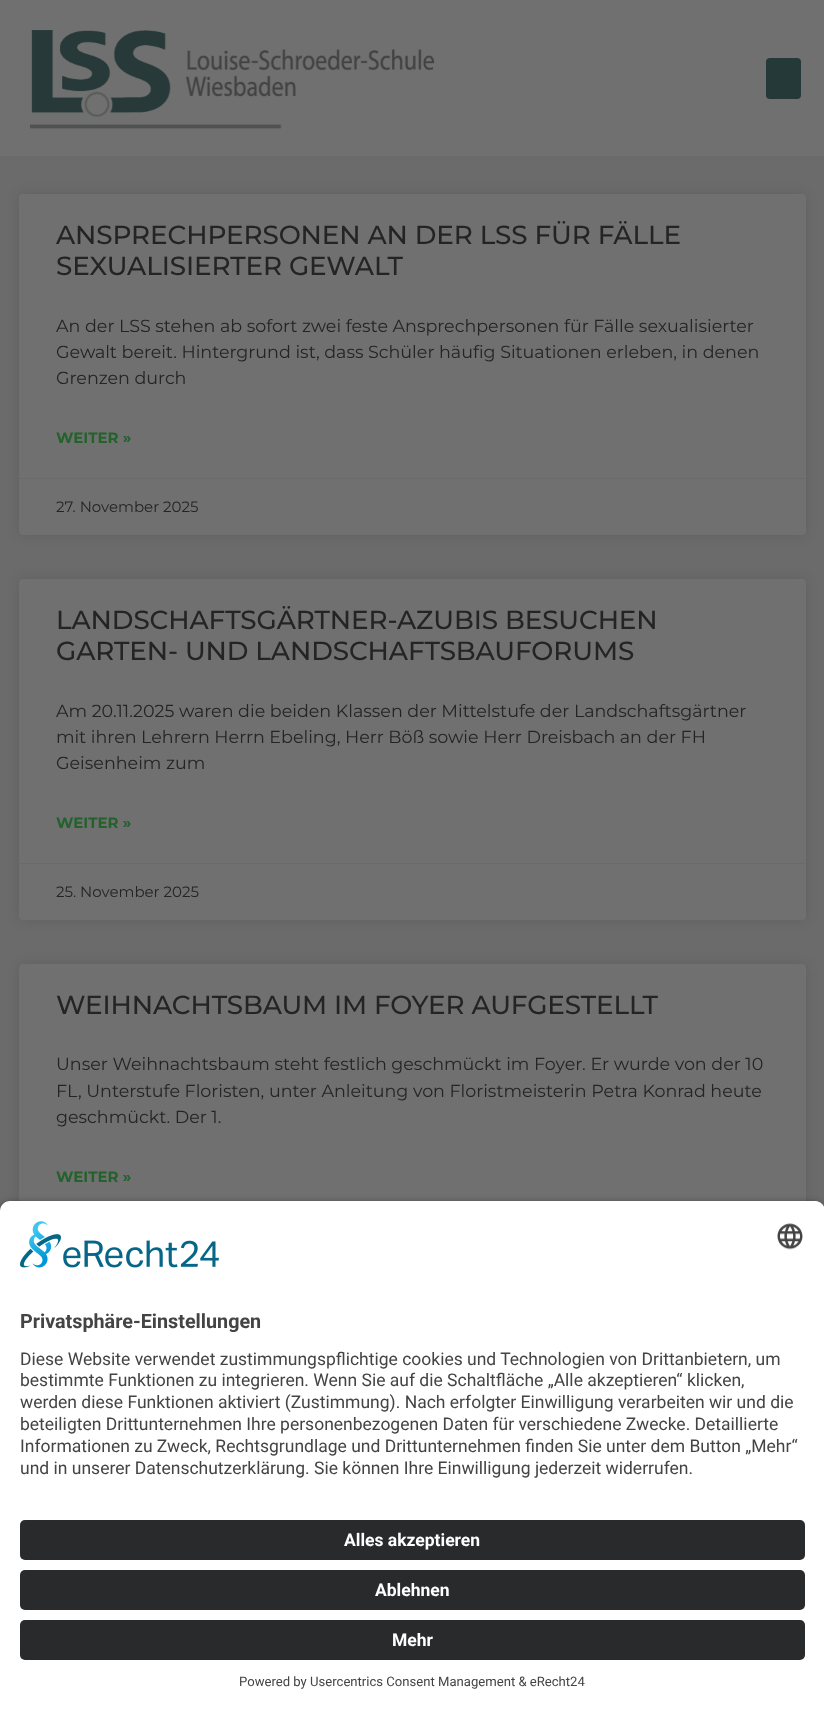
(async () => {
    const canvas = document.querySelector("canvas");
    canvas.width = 824;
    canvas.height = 1710;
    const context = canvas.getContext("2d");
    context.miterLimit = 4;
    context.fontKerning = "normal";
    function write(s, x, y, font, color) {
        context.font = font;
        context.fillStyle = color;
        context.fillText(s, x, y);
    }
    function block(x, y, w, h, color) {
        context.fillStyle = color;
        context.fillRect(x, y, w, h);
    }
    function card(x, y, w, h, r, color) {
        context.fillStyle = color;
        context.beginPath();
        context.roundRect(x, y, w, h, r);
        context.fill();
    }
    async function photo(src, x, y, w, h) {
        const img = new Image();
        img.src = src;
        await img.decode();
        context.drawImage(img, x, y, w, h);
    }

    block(0, 0, 824, 1710, "rgb(107, 107, 107)");
    block(0, 0, 824, 156, "rgb(112, 112, 112)");
    await photo("media/1.png", 30, 30, 405, 99);
    card(766, 58, 35, 41, 4, "rgb(37, 57, 57)");
    context.fillStyle = "rgba(36, 36, 36, 0.15)";
    context.filter = "blur(6px)";
    context.beginPath();
    context.roundRect(19, 194, 787, 341, 4);
    context.fill();
    context.filter = "none";
    card(19, 194, 787, 341, 4, "rgb(112, 112, 112)");
    context.letterSpacing = "-0.1px";
    write("ANSPRECHPERSONEN AN DER LSS FÜR FÄLLE", 56, 244, "500 26.25px Montserrat", "rgb(36, 36, 36)");
    write("SEXUALISIERTER GEWALT", 56, 275, "500 26.25px Montserrat", "rgb(36, 36, 36)");
    context.letterSpacing = "0px";
    write("An der LSS stehen ab sofort zwei feste Ansprechpersonen für Fälle sexualisierter", 56, 332, "17.5px Montserrat", "rgb(36, 36, 36)");
    write("Gewalt bereit. Hintergrund ist, dass Schüler häufig Situationen erleben, in denen", 56, 358, "17.5px Montserrat", "rgb(36, 36, 36)");
    write("Grenzen durch", 56, 384, "17.5px Montserrat", "rgb(36, 36, 36)");
    write("WEITER »", 56, 443, "bold 15px Montserrat", "rgb(36, 98, 44)");
    block(19, 478, 787, 1, "rgb(106, 106, 106)");
    write("27. November 2025", 56, 512, "15px Montserrat", "rgb(36, 36, 36)");
    context.fillStyle = "rgba(36, 36, 36, 0.15)";
    context.filter = "blur(6px)";
    context.beginPath();
    context.roundRect(19, 579, 787, 341, 4);
    context.fill();
    context.filter = "none";
    card(19, 579, 787, 341, 4, "rgb(112, 112, 112)");
    context.letterSpacing = "-0.1px";
    write("LANDSCHAFTSGÄRTNER-AZUBIS BESUCHEN", 56, 629, "500 26.25px Montserrat", "rgb(36, 36, 36)");
    write("GARTEN- UND LANDSCHAFTSBAUFORUMS", 56, 660, "500 26.25px Montserrat", "rgb(36, 36, 36)");
    context.letterSpacing = "0px";
    write("Am 20.11.2025 waren die beiden Klassen der Mittelstufe der Landschaftsgärtner", 56, 717, "17.5px Montserrat", "rgb(36, 36, 36)");
    write("mit ihren Lehrern Herrn Ebeling, Herr Böß sowie Herr Dreisbach an der FH", 56, 743, "17.5px Montserrat", "rgb(36, 36, 36)");
    write("Geisenheim zum", 56, 769, "17.5px Montserrat", "rgb(36, 36, 36)");
    write("WEITER »", 56, 828, "bold 15px Montserrat", "rgb(36, 98, 44)");
    block(19, 863, 787, 1, "rgb(106, 106, 106)");
    write("25. November 2025", 56, 897, "15px Montserrat", "rgb(36, 36, 36)");
    context.fillStyle = "rgba(36, 36, 36, 0.15)";
    context.filter = "blur(6px)";
    context.beginPath();
    context.roundRect(19, 964, 787, 310, 4);
    context.fill();
    context.filter = "none";
    card(19, 964, 787, 310, 4, "rgb(112, 112, 112)");
    context.letterSpacing = "-0.1px";
    write("WEIHNACHTSBAUM IM FOYER AUFGESTELLT", 56, 1014, "500 26.25px Montserrat", "rgb(36, 36, 36)");
    context.letterSpacing = "0px";
    write("Unser Weihnachtsbaum steht festlich geschmückt im Foyer. Er wurde von der 10", 56, 1070, "17.5px Montserrat", "rgb(36, 36, 36)");
    write("FL, Unterstufe Floristen, unter Anleitung von Floristmeisterin Petra Konrad heute", 56, 1097, "17.5px Montserrat", "rgb(36, 36, 36)");
    write("geschmückt. Der 1.", 56, 1123, "17.5px Montserrat", "rgb(36, 36, 36)");
    write("WEITER »", 56, 1182, "bold 15px Montserrat", "rgb(36, 98, 44)");
    context.fillStyle = "rgba(0, 0, 0, 0.8)";
    context.filter = "blur(4.5px)";
    context.beginPath();
    context.roundRect(0, 1205, 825, 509, 10);
    context.fill();
    context.filter = "none";
    context.fillStyle = "rgb(255, 255, 255)";
    context.beginPath();
    context.moveTo(10, 1201);
    context.lineTo(815, 1201);
    context.bezierCurveTo(820.5, 1201, 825, 1205.5, 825, 1211);
    context.lineTo(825, 1505);
    context.lineTo(0, 1505);
    context.lineTo(0, 1211);
    context.bezierCurveTo(0, 1205.5, 4.5, 1201, 10, 1201);
    context.closePath();
    context.fill();
    await photo("media/2.png", 20, 1221, 199, 47);
    await photo("media/3.png", 777, 1223, 26, 27);
    write("Privatsphäre-Einstellungen", 20, 1328, "bold 19.75px Roboto", "rgb(68, 68, 68)");
    write("Diese Website verwendet zustimmungspflichtige cookies und Technologien von Drittanbietern, um", 20, 1365, "17.5px Roboto", "rgb(68, 68, 68)");
    write("bestimmte Funktionen zu integrieren. Wenn Sie auf die Schaltfläche „Alle akzeptieren“ klicken,", 20, 1386, "17.5px Roboto", "rgb(68, 68, 68)");
    write("werden diese Funktionen aktiviert (Zustimmung). Nach erfolgter Einwilligung verarbeiten wir und die", 20, 1408, "17.5px Roboto", "rgb(68, 68, 68)");
    write("beteiligten Drittunternehmen Ihre personenbezogenen Daten für verschiedene Zwecke. Detaillierte", 20, 1430, "17.5px Roboto", "rgb(68, 68, 68)");
    write("Informationen zu Zweck, Rechtsgrundlage und Drittunternehmen finden Sie unter dem Button „Mehr“", 20, 1452, "17.5px Roboto", "rgb(68, 68, 68)");
    write("und in unserer Datenschutzerklärung. Sie können Ihre Einwilligung jederzeit widerrufen.", 20, 1474, "17.5px Roboto", "rgb(68, 68, 68)");
    block(0, 1505, 824, 205, "rgb(255, 255, 255)");
    card(20, 1520, 785, 40, 5, "rgb(41, 42, 43)");
    write("Alles akzeptieren", 344, 1546, "bold 17.5px Roboto", "rgb(255, 255, 255)");
    card(20, 1570, 785, 40, 5, "rgb(41, 42, 43)");
    write("Ablehnen", 375, 1596, "bold 17.5px Roboto", "rgb(255, 255, 255)");
    card(20, 1620, 785, 40, 5, "rgb(41, 42, 43)");
    write("Mehr", 392, 1646, "bold 17.5px Roboto", "rgb(255, 255, 255)");
    write("Powered by Usercentrics Consent Management & eRecht24", 239, 1686, "13.1px Roboto", "rgb(68, 68, 68)");
})();
